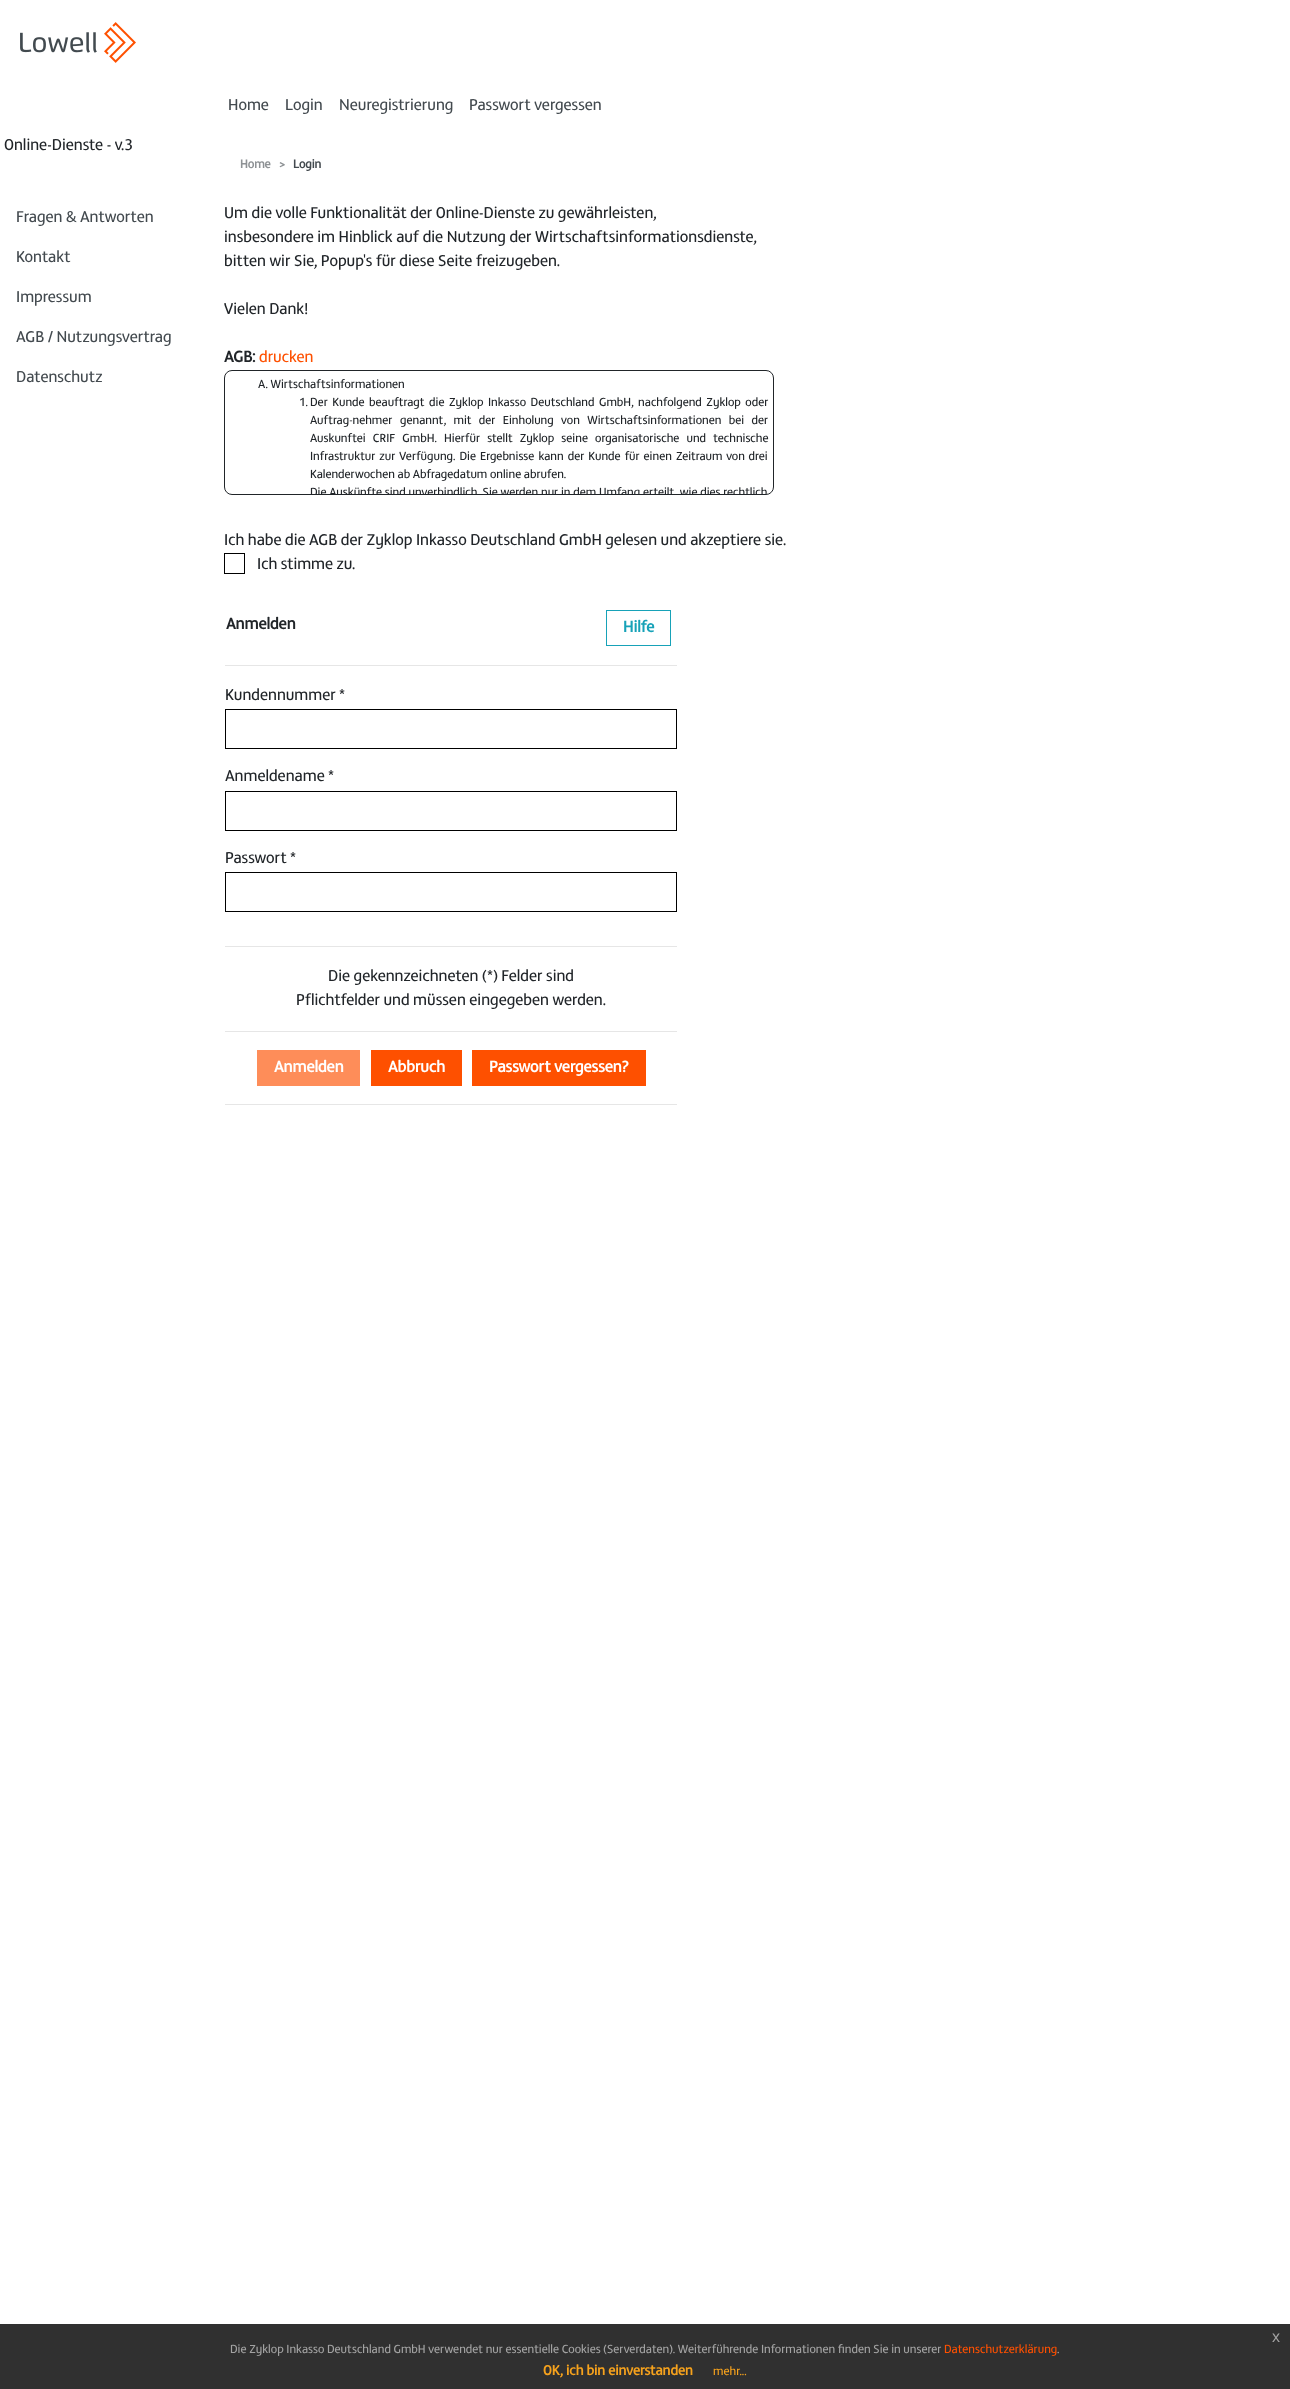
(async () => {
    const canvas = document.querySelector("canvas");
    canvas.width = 1290;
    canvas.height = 2389;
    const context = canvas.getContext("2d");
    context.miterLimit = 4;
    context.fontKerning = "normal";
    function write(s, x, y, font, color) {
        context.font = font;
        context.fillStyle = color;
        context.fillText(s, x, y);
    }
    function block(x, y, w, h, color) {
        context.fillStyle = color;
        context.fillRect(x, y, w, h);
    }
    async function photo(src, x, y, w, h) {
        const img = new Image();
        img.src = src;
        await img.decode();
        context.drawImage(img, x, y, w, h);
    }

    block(0, 0, 1290, 2389, "rgb(255, 255, 255)");
    await photo("media/1.png", 20, 22, 116, 41);
    write("Home", 228, 110, "16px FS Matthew", "rgb(67, 74, 79)");
    write("Login", 285, 110, "16px FS Matthew", "rgb(67, 74, 79)");
    write("Neuregistrierung", 339, 110, "16px FS Matthew", "rgb(67, 74, 79)");
    write("Passwort vergessen", 469, 110, "16px FS Matthew", "rgb(67, 74, 79)");
    write("Online-Dienste - v.3", 4, 150, "16px FS Matthew", "rgb(33, 37, 41)");
    write("Fragen & Antworten", 16, 222, "16px FS Matthew", "rgb(67, 74, 79)");
    write("Kontakt", 16, 262, "16px FS Matthew", "rgb(67, 74, 79)");
    write("Impressum", 16, 302, "16px FS Matthew", "rgb(67, 74, 79)");
    write("AGB / Nutzungsvertrag", 16, 342, "16px FS Matthew", "rgb(67, 74, 79)");
    write("Datenschutz", 16, 382, "16px FS Matthew", "rgb(67, 74, 79)");
    write("Home", 240, 168, "bold 12px FS Matthew", "rgb(142, 146, 149)");
    write(">", 279, 168, "bold 12px FS Matthew", "rgb(142, 146, 149)");
    write("Login", 293, 168, "bold 12px FS Matthew", "rgb(67, 74, 79)");
    write("Um die volle Funktionalität der Online-Dienste zu gewährleisten,", 224, 218, "16px FS Matthew", "rgb(33, 37, 41)");
    write("insbesondere im Hinblick auf die Nutzung der Wirtschaftsinformationsdienste,", 224, 242, "16px FS Matthew", "rgb(33, 37, 41)");
    write("bitten wir Sie, Popup's für diese Seite freizugeben.", 224, 266, "16px FS Matthew", "rgb(33, 37, 41)");
    write("Vielen Dank!", 224, 314, "16px FS Matthew", "rgb(33, 37, 41)");
    write("AGB:", 224, 362, "bold 16px FS Matthew", "rgb(33, 37, 41)");
    write("drucken", 259, 362, "16px FS Matthew", "rgb(254, 80, 0)");
    context.beginPath();
    context.roundRect(224.5, 370.5, 549, 124, 7.5);
    context.strokeStyle = "rgb(33, 37, 41)";
    context.stroke();
    write("A. Wirtschaftsinformationen", 258, 388, "12px FS Matthew", "rgb(33, 37, 41)");
    write("1.", 299, 406, "12px FS Matthew", "rgb(33, 37, 41)");
    context.wordSpacing = "1.9px";
    write("Der Kunde beauftragt die Zyklop Inkasso Deutschland GmbH, nachfolgend Zyklop oder", 310, 406, "12px FS Matthew", "rgb(33, 37, 41)");
    context.wordSpacing = "0px";
    write("Auftrag-nehmer", 310, 424, "12px FS Matthew", "rgb(33, 37, 41)");
    context.wordSpacing = "4.75px";
    write("genannt, mit der Einholung von Wirtschaftsinformationen bei der", 400, 424, "12px FS Matthew", "rgb(33, 37, 41)");
    context.wordSpacing = "4.5px";
    write("Auskunftei CRIF GmbH. Hierfür stellt Zyklop seine", 310, 442, "12px FS Matthew", "rgb(33, 37, 41)");
    write("organisatorische und technische", 595, 442, "12px FS Matthew", "rgb(33, 37, 41)");
    context.wordSpacing = "1.4px";
    write("Infrastruktur zur Verfügung. Die Ergebnisse kann der Kunde für einen", 310, 460, "12px FS Matthew", "rgb(33, 37, 41)");
    context.wordSpacing = "1px";
    write("Zeitraum von drei", 676, 460, "12px FS Matthew", "rgb(33, 37, 41)");
    context.wordSpacing = "0px";
    write("Kalenderwochen ab Abfragedatum online abrufen.", 310, 478, "12px FS Matthew", "rgb(33, 37, 41)");
    context.save();
    context.beginPath();
    context.roundRect(225, 371, 548, 123, 7);
    context.clip();
    context.wordSpacing = "0.1px";
    write("Die Auskünfte sind unverbindlich. Sie werden nur in dem Umfang erteilt, wie dies rechtlich", 310, 496, "12px FS Matthew", "rgb(33, 37, 41)");
    context.restore();
    write("Ich habe die AGB der Zyklop Inkasso Deutschland GmbH gelesen und akzeptiere sie.", 224, 545, "16px FS Matthew", "rgb(33, 37, 41)");
    context.strokeStyle = "rgb(0, 0, 0)";
    context.strokeRect(224.5, 553.5, 20, 20);
    write("Ich stimme zu.", 257, 569, "16px FS Matthew", "rgb(33, 37, 41)");
    write("Anmelden", 226, 629, "bold 16px FS Matthew", "rgb(33, 37, 41)");
    context.strokeStyle = "rgb(23, 162, 184)";
    context.strokeRect(606.5, 610.5, 64, 35);
    write("Hilfe", 623, 632, "bold 16px FS Matthew", "rgb(23, 162, 184)");
    block(225, 665, 452, 1, "rgb(230, 230, 230)");
    write("Kundennummer *", 225, 700, "16px FS Matthew", "rgb(33, 37, 41)");
    context.strokeStyle = "rgb(0, 0, 0)";
    context.strokeRect(225.5, 709.5, 451, 39);
    write("Anmeldename *", 225, 781, "16px FS Matthew", "rgb(33, 37, 41)");
    context.strokeRect(225.5, 791.5, 451, 39);
    write("Passwort *", 225, 863, "16px FS Matthew", "rgb(33, 37, 41)");
    context.strokeRect(225.5, 872.5, 451, 39);
    block(225, 946, 452, 1, "rgb(230, 230, 230)");
    write("Die gekennzeichneten (*) Felder sind", 328, 981, "16px FS Matthew", "rgb(33, 37, 41)");
    write("Pflichtfelder und müssen eingegeben werden.", 296, 1005, "16px FS Matthew", "rgb(33, 37, 41)");
    block(225, 1031, 452, 1, "rgb(230, 230, 230)");
    block(257, 1050, 103, 36, "rgb(254, 141, 89)");
    write("Anmelden", 274, 1072, "bold 16px FS Matthew", "rgb(255, 255, 255)");
    block(371, 1050, 91, 36, "rgb(254, 80, 0)");
    write("Abbruch", 388, 1072, "bold 16px FS Matthew", "rgb(255, 255, 255)");
    block(472, 1050, 174, 36, "rgb(254, 80, 0)");
    write("Passwort vergessen?", 489, 1072, "bold 16px FS Matthew", "rgb(255, 255, 255)");
    block(225, 1104, 452, 1, "rgb(230, 230, 230)");
    block(0, 2324, 1290, 65, "rgb(48, 48, 48)");
    write("x", 1272, 2342, "16px Liberation Sans", "rgb(162, 162, 162)");
    write("Die Zyklop Inkasso Deutschland GmbH verwendet nur essentielle Cookies (Serverdaten). Weiterführende Informationen finden Sie in unserer", 230, 2353, "12px FS Matthew", "rgb(162, 162, 162)");
    write("Datenschutzerklärung", 944, 2353, "12px FS Matthew", "rgb(254, 80, 0)");
    write(".", 1057, 2353, "12px FS Matthew", "rgb(162, 162, 162)");
    write("OK, ich bin einverstanden", 543, 2375, "bold 14px FS Matthew", "rgb(246, 162, 29)");
    write("mehr...", 713, 2375, "12px FS Matthew", "rgb(246, 162, 29)");
})();
